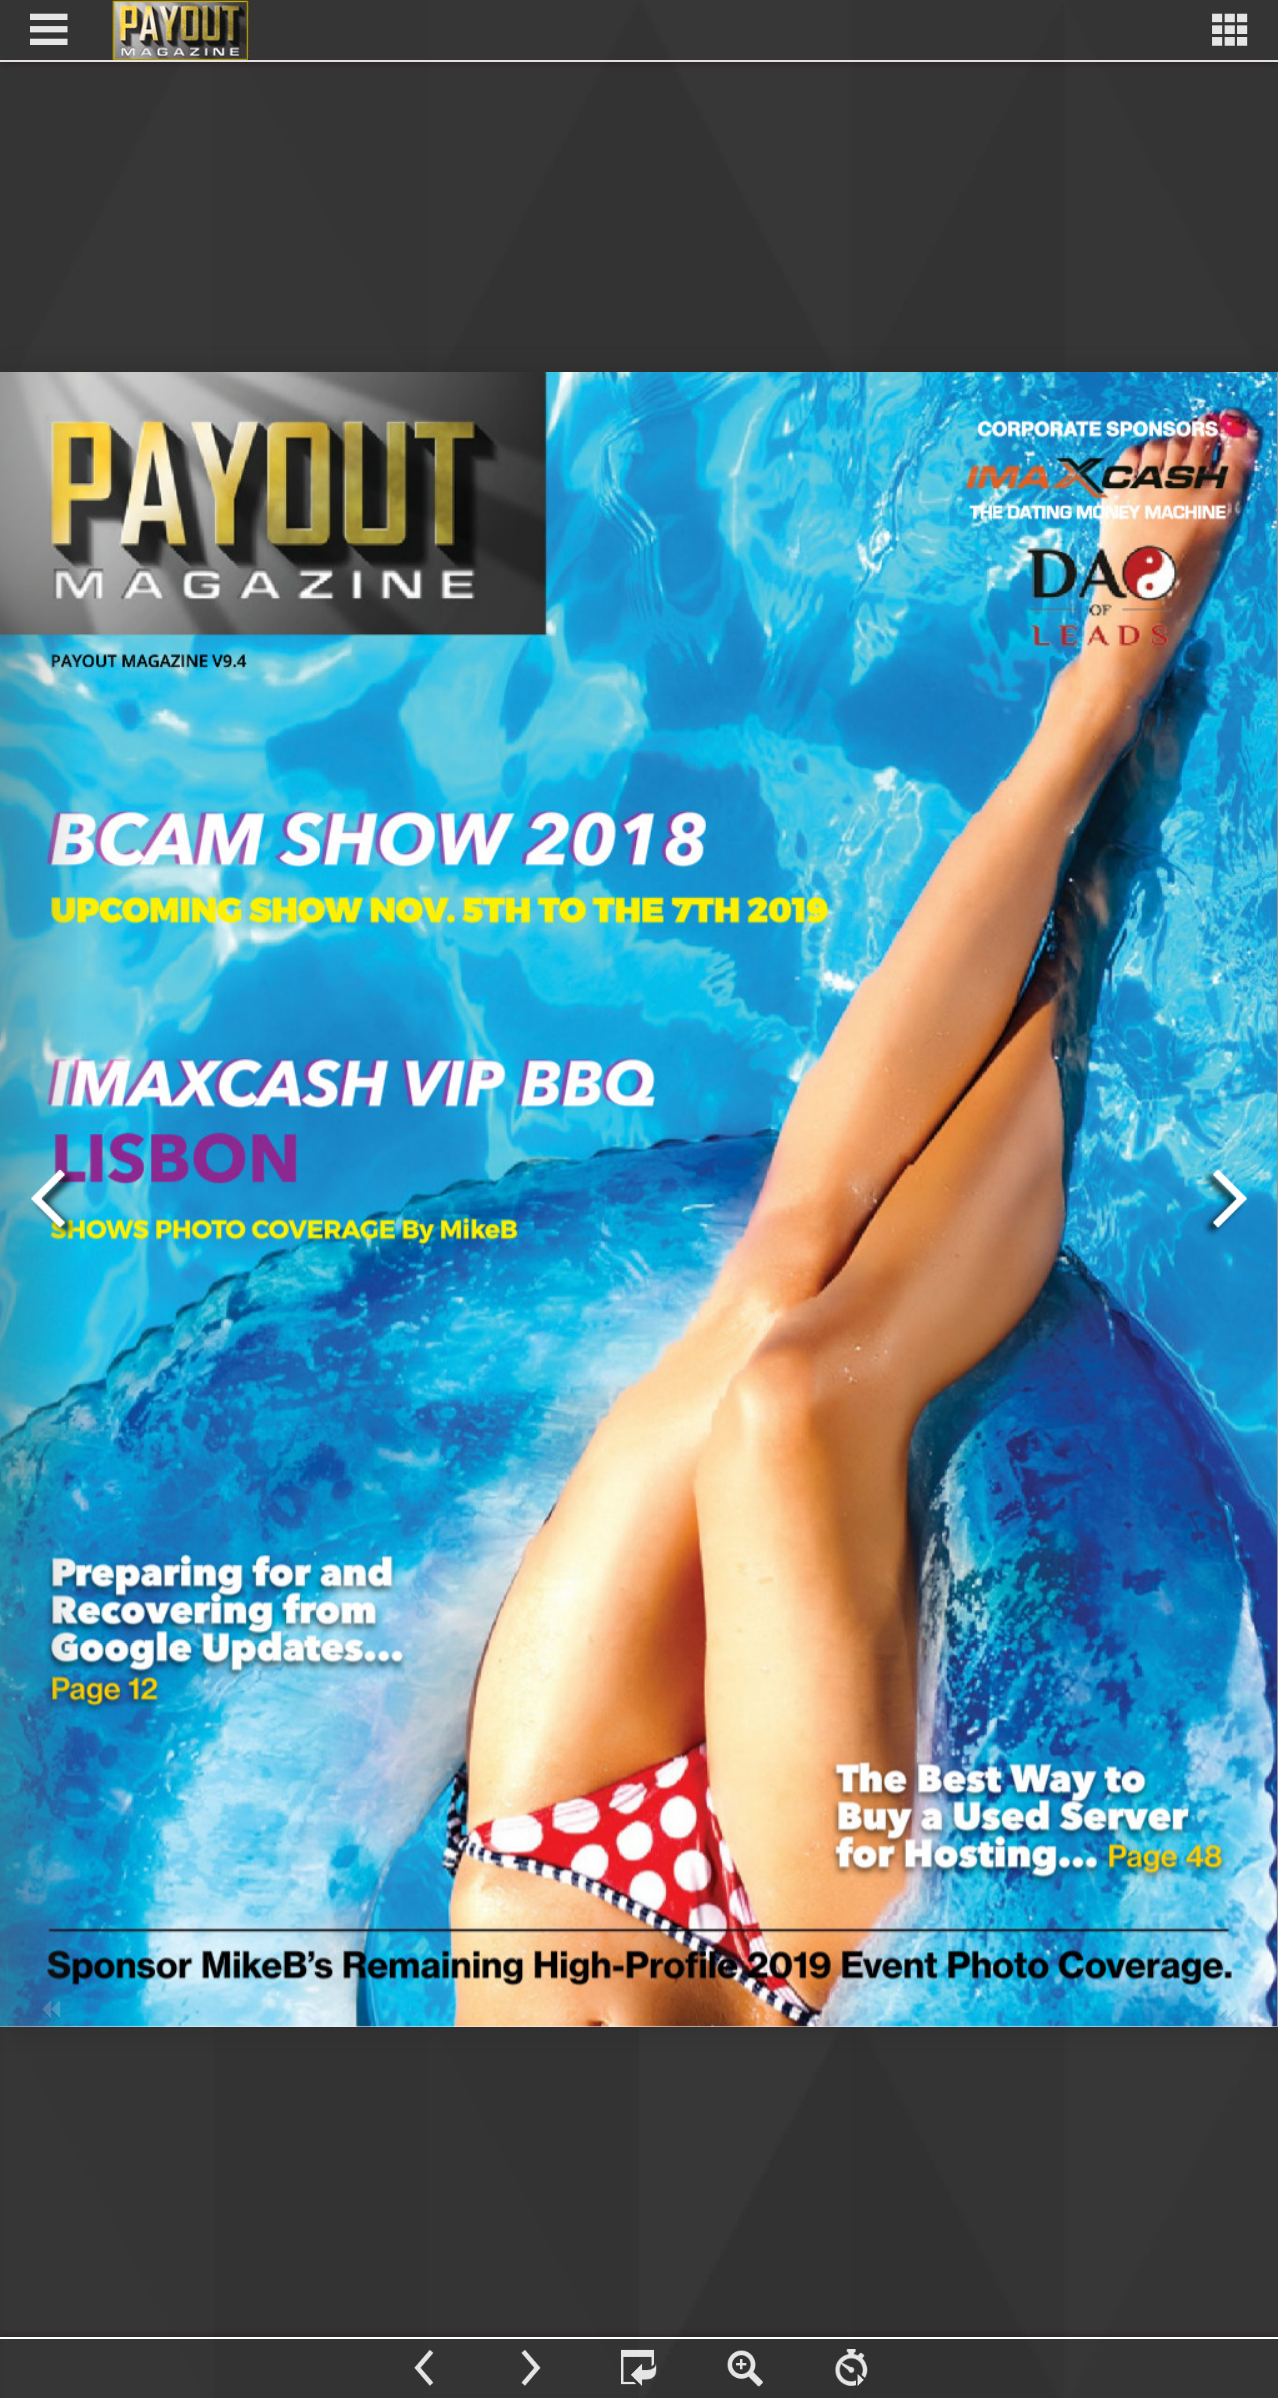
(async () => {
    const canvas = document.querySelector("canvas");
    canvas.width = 1278;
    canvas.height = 2398;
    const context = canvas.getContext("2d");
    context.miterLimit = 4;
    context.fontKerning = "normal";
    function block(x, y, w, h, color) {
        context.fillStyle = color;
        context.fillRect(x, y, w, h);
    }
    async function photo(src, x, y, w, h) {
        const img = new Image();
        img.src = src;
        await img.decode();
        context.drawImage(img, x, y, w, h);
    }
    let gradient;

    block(0, 0, 1278, 2398, "rgb(255, 255, 255)");
    await photo("media/1.png", 0, 0, 1278, 2398);
    context.save();
    context.beginPath();
    context.rect(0, 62, 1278, 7);
    context.clip();
    context.fillStyle = "rgba(40, 0, 0, 0.5)";
    context.filter = "blur(4px)";
    context.beginPath();
    context.rect(0, 0, 1278, 62);
    context.fill();
    context.filter = "none";
    context.restore();
    block(0, 60, 1278, 2, "rgb(225, 225, 225)");
    await photo("media/2.png", 30, 13, 38, 32);
    await photo("media/3.png", 112, 0, 137, 60);
    await photo("media/4.png", 1212, 13, 36, 33);
    context.fillStyle = "rgba(40, 40, 40, 0.7)";
    context.filter = "blur(11px)";
    context.beginPath();
    context.rect(0, 372, 1278, 1655);
    context.fill();
    context.filter = "none";
    block(0, 2025, 1278, 2, "rgb(245, 240, 245)");
    await photo("media/5.png", 0, 372, 1278, 1655);
    gradient = context.createLinearGradient(0, 372, 83, 372);
    gradient.addColorStop(0, "rgba(93, 93, 93, 0.36)");
    gradient.addColorStop(1, "rgba(93, 93, 93, 0)");
    context.fillStyle = gradient;
    context.fillRect(0, 372, 78, 1655);
    block(1277, 372, 1, 75, "rgb(151, 151, 151)");
    block(1277, 447, 1, 1505, "rgb(148, 148, 148)");
    await photo("media/6.png", 1277, 1952, 1, 75);
    await photo("media/7.png", 31, 1169, 44, 67);
    await photo("media/8.png", 1203, 1169, 44, 67);
    await photo("media/9.png", 42, 2001, 19, 19);
    await photo("media/10.png", 1217, 2001, 20, 18);
    context.save();
    context.beginPath();
    context.rect(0, 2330, 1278, 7);
    context.clip();
    context.fillStyle = "rgba(40, 0, 0, 0.5)";
    context.filter = "blur(4px)";
    context.beginPath();
    context.rect(0, 2337, 1278, 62);
    context.fill();
    context.filter = "none";
    context.restore();
    block(0, 2337, 1278, 2, "rgb(255, 255, 255)");
    await photo("media/11.png", 414, 2349, 20, 37);
    await photo("media/12.png", 521, 2349, 20, 37);
    await photo("media/13.png", 621, 2349, 36, 37);
    await photo("media/14.png", 727, 2350, 36, 37);
    await photo("media/15.png", 835, 2349, 33, 37);
})();
